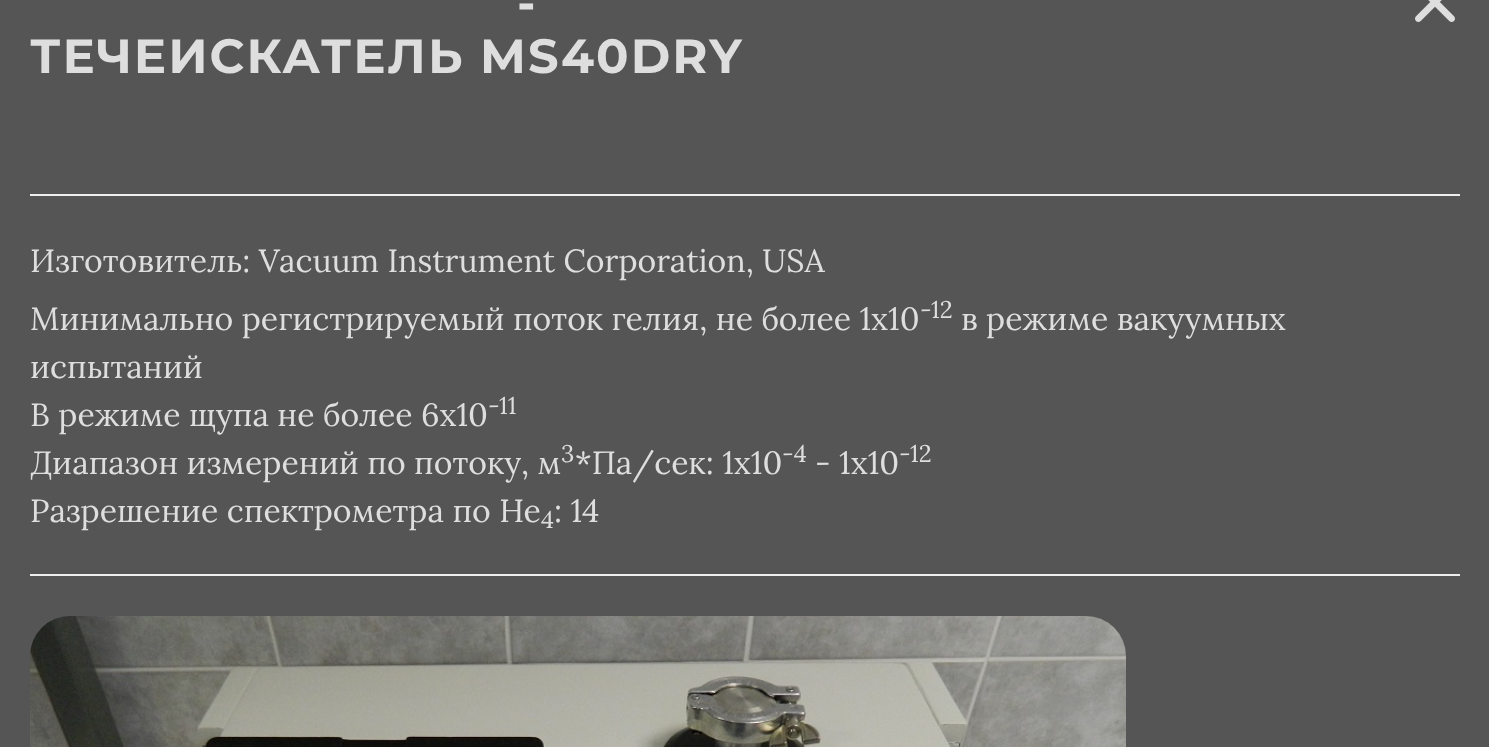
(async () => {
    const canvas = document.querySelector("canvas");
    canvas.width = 1489;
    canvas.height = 747;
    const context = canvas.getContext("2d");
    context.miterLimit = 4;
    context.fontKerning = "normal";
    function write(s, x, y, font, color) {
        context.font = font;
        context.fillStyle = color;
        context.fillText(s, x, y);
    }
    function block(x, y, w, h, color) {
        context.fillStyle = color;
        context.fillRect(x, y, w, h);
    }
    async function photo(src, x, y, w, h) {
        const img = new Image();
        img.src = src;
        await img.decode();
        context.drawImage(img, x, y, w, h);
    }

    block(0, 0, 1489, 747, "rgb(85, 85, 85)");
    context.letterSpacing = "2px";
    write("-", 517, 20, "bold 48px Montserrat", "rgb(222, 222, 222)");
    write("ТЕЧЕИСКАТЕЛЬ MS40DRY", 30, 73, "bold 48px Montserrat", "rgb(222, 222, 222)");
    await photo("media/1.png", 1415, 0, 40, 22);
    block(30, 194, 1430, 2, "rgb(238, 238, 238)");
    context.letterSpacing = "0px";
    write("Изготовитель: Vacuum Instrument Corporation, USA", 30, 272, "32px Lora", "rgb(222, 222, 222)");
    write("Минимально регистрируемый поток гелия, не более 1x10", 30, 330, "32px Lora", "rgb(222, 222, 222)");
    write("-12", 920, 318, "24px Lora", "rgb(222, 222, 222)");
    write("в режиме вакуумных", 961, 330, "32px Lora", "rgb(222, 222, 222)");
    write("испытаний", 30, 378, "32px Lora", "rgb(222, 222, 222)");
    write("В режиме щупа не более 6x10", 30, 426, "32px Lora", "rgb(222, 222, 222)");
    write("-11", 488, 414, "24px Lora", "rgb(222, 222, 222)");
    write("Диапазон измерений по потоку, м", 30, 474, "32px Lora", "rgb(222, 222, 222)");
    write("3", 561, 462, "24px Lora", "rgb(222, 222, 222)");
    write("*Па/сек: 1x10", 575, 474, "32px Lora", "rgb(222, 222, 222)");
    write("-4", 782, 462, "24px Lora", "rgb(222, 222, 222)");
    write("- 1x10", 815, 474, "32px Lora", "rgb(222, 222, 222)");
    write("-12", 899, 462, "24px Lora", "rgb(222, 222, 222)");
    write("Разрешение спектрометра по Не", 30, 522, "32px Lora", "rgb(222, 222, 222)");
    write("4", 541, 528, "24px Lora", "rgb(222, 222, 222)");
    write(": 14", 554, 522, "32px Lora", "rgb(222, 222, 222)");
    block(30, 574, 1430, 2, "rgb(238, 238, 238)");
    await photo("media/2.png", 30, 616, 1096, 131);
})();
